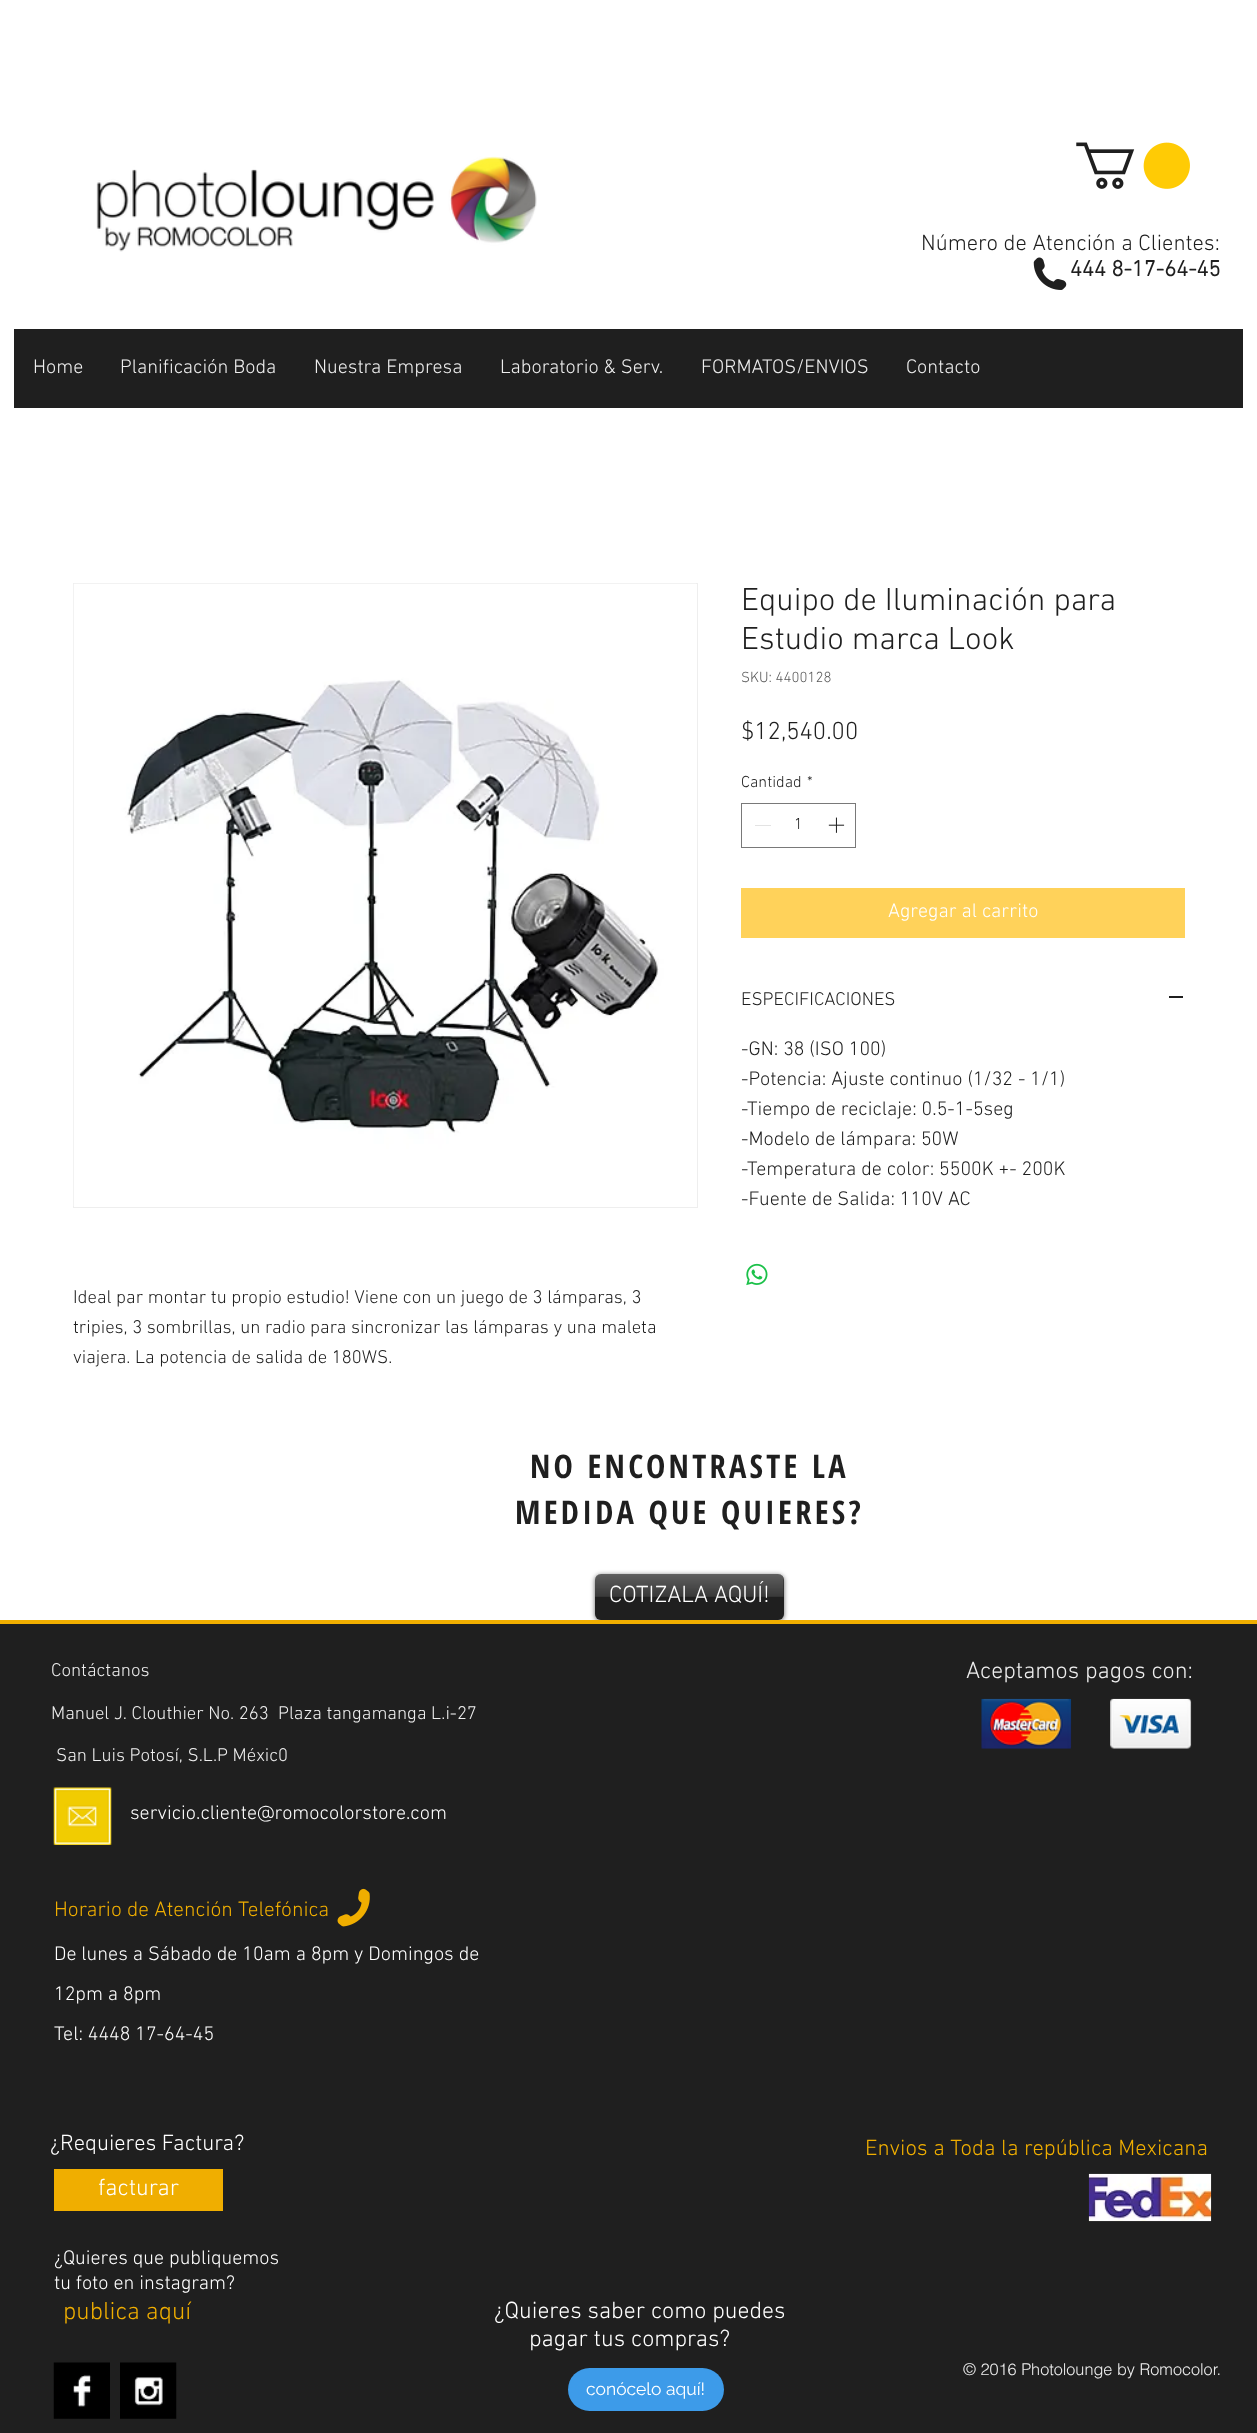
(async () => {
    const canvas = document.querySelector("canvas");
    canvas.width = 1257;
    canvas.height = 2433;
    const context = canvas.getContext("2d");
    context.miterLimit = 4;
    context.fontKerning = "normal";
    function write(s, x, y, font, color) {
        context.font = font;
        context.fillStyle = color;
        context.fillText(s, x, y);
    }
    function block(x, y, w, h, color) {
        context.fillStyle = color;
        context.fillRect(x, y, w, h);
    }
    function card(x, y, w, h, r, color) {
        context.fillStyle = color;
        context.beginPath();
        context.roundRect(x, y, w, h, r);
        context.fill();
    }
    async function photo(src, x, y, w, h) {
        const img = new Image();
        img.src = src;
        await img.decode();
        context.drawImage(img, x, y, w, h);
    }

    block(0, 0, 1257, 2433, "rgb(255, 255, 255)");
    await photo("media/1.png", 96, 156, 441, 96);
    await photo("media/2.png", 1076, 142, 114, 47);
    write("Número de Atención a Clientes:", 921, 250, "300 22.5px 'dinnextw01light'", "rgb(31, 31, 31)");
    write("444 8-17-64-45", 1070, 276, "bold 22.5px 'dinnextw01light'", "rgb(31, 31, 31)");
    await photo("media/3.png", 1033, 257, 34, 33);
    block(14, 329, 1229, 79, "rgb(31, 31, 31)");
    write("Home", 33, 373, "300 20px 'dinnextw01light'", "rgb(238, 238, 238)");
    write("Planificación Boda", 120, 373, "300 20px 'dinnextw01light'", "rgb(238, 238, 238)");
    write("Nuestra Empresa", 314, 373, "300 20px 'dinnextw01light'", "rgb(238, 238, 238)");
    write("Laboratorio & Serv.", 500, 373, "300 20px 'dinnextw01light'", "rgb(238, 238, 238)");
    write("FORMATOS/ENVIOS", 701, 373, "300 20px 'dinnextw01light'", "rgb(238, 238, 238)");
    write("Contacto", 906, 373, "300 20px 'dinnextw01light'", "rgb(238, 238, 238)");
    write("Equipo de Iluminación para", 741, 610, "300 32.5px 'dinnextw01light'", "rgb(31, 31, 31)");
    write("Estudio marca Look", 741, 649, "300 32.5px 'dinnextw01light'", "rgb(31, 31, 31)");
    write("SKU: 4400128", 741, 682, "300 15px 'dinnextw01light'", "rgb(90, 90, 90)");
    write("$12,540.00", 741, 739, "300 25px 'dinnextw01light'", "rgb(31, 31, 31)");
    write("Cantidad", 741, 787, "300 16.25px 'dinnextw01light'", "rgb(31, 31, 31)");
    write("*", 807, 787, "300 16.25px 'dinnextw01light'", "rgb(31, 31, 31)");
    context.strokeStyle = "rgb(121, 121, 121)";
    context.strokeRect(741.5, 803.5, 114, 44);
    block(755, 825, 16, 1, "rgb(227, 227, 227)");
    write("1", 794, 829, "300 16.25px 'dinnextw01light'", "rgb(31, 31, 31)");
    await photo("media/4.png", 828, 817, 17, 16);
    block(741, 888, 444, 50, "rgb(255, 210, 90)");
    write("Agregar al carrito", 888, 917, "300 20px 'dinnextw01light'", "rgb(255, 255, 255)");
    write("ESPECIFICACIONES", 741, 1005, "300 18.75px 'dinnextw01light'", "rgb(31, 31, 31)");
    block(1169, 996, 14, 2, "rgb(31, 31, 31)");
    write("-GN: 38 (ISO 100)", 741, 1055, "300 20px 'dinnextw01light'", "rgb(31, 31, 31)");
    write("-Potencia: Ajuste continuo (1/32 - 1/1)", 741, 1085, "300 20px 'dinnextw01light'", "rgb(31, 31, 31)");
    write("-Tiempo de reciclaje: 0.5-1-5seg", 741, 1115, "300 20px 'dinnextw01light'", "rgb(31, 31, 31)");
    write("-Modelo de lámpara: 50W", 741, 1145, "300 20px 'dinnextw01light'", "rgb(31, 31, 31)");
    write("-Temperatura de color: 5500K +- 200K", 741, 1175, "300 20px 'dinnextw01light'", "rgb(31, 31, 31)");
    write("-Fuente de Salida: 110V AC", 741, 1205, "300 20px 'dinnextw01light'", "rgb(31, 31, 31)");
    await photo("media/5.png", 746, 1263, 22, 23);
    context.strokeStyle = "rgb(238, 238, 238)";
    context.strokeRect(73.5, 583.5, 624, 624);
    await photo("media/6.png", 73, 583, 623, 623);
    write("Ideal par montar tu propio estudio! Viene con un juego de 3 lámparas, 3", 73, 1303, "300 18.75px 'dinnextw01light'", "rgb(31, 31, 31)");
    write("tripies, 3 sombrillas, un radio para sincronizar las lámparas y una maleta", 73, 1333, "300 18.75px 'dinnextw01light'", "rgb(31, 31, 31)");
    write("viajera. La potencia de salida de 180WS.", 73, 1363, "300 18.75px 'dinnextw01light'", "rgb(31, 31, 31)");
    context.letterSpacing = "3.25px";
    write("NO ENCONTRASTE LA", 530, 1478, "bold 32.5px Open Sans Condensed", "rgb(31, 31, 31)");
    write("MEDIDA QUE QUIERES?", 515, 1524, "bold 32.5px Open Sans Condensed", "rgb(31, 31, 31)");
    context.fillStyle = "rgba(0, 0, 0, 0.6)";
    context.filter = "blur(2.5px)";
    context.beginPath();
    context.roundRect(595, 1575, 189, 46, 6);
    context.fill();
    context.filter = "none";
    card(595, 1574, 189, 46, 6, "rgb(31, 31, 31)");
    await photo("media/7.png", 595, 1574, 189, 23);
    context.letterSpacing = "0px";
    write("COTIZALA AQUÍ!", 609, 1602, "300 23.75px 'dinnextw01light'", "rgb(255, 255, 255)");
    block(0, 1624, 1257, 809, "rgb(31, 31, 31)");
    block(0, 1620, 1257, 4, "rgb(240, 174, 0)");
    write("Contáctanos", 51, 1676, "300 18.75px 'dinnextw01light'", "rgb(238, 238, 238)");
    write("Manuel J. Clouthier No. 263  Plaza tangamanga L.i-27", 51, 1719, "300 18.75px 'dinnextw01light'", "rgb(238, 238, 238)");
    write("San Luis Potosí, S.L.P Méxic0", 56, 1761, "300 18.75px 'dinnextw01light'", "rgb(238, 238, 238)");
    write("Aceptamos pagos con:", 966, 1678, "300 23.75px 'dinnextw01light'", "rgb(238, 238, 238)");
    await photo("media/8.png", 981, 1698, 91, 51);
    await photo("media/9.png", 1110, 1698, 82, 51);
    await photo("media/10.png", 53, 1787, 59, 58);
    write("servicio.cliente@romocolorstore.com", 130, 1819, "300 20px 'dinnextw01light'", "rgb(255, 255, 255)");
    write("Horario de Atención Telefónica", 54, 1916, "300 21.25px 'dinnextw01light'", "rgb(240, 174, 0)");
    await photo("media/11.png", 337, 1888, 33, 39);
    write("De lunes a Sábado de 10am a 8pm y Domingos de", 54, 1960, "300 20px 'dinnextw01light'", "rgb(255, 255, 255)");
    write("12pm a 8pm", 54, 2000, "300 20px 'dinnextw01light'", "rgb(255, 255, 255)");
    write("Tel: 4448 17-64-45", 54, 2040, "300 20px 'dinnextw01light'", "rgb(255, 255, 255)");
    write("¿Requieres Factura?", 50, 2150, "300 22.5px 'dinnextw01light'", "rgb(255, 255, 255)");
    write("Envios a Toda la república Mexicana", 865, 2155, "300 22.5px 'dinnextw01light'", "rgb(240, 174, 0)");
    block(54, 2169, 169, 42, "rgb(240, 174, 0)");
    write("facturar", 98, 2195, "300 23.75px 'dinnextw01light'", "rgb(255, 255, 255)");
    await photo("media/12.png", 1088, 2173, 124, 49);
    write("¿Quieres que publiquemos", 54, 2264, "300 20px 'dinnextw01light'", "rgb(255, 255, 255)");
    write("tu foto en instagram?", 54, 2289, "300 20px 'dinnextw01light'", "rgb(255, 255, 255)");
    write("publica aquí", 63, 2319, "300 25px 'dinnextw01light'", "rgb(240, 174, 0)");
    write("¿Quieres saber como puedes", 494, 2318, "300 23.75px 'dinnextw01light'", "rgb(255, 255, 255)");
    write("pagar tus compras?", 529, 2346, "300 23.75px 'dinnextw01light'", "rgb(255, 255, 255)");
    await photo("media/13.png", 53, 2362, 57, 57);
    await photo("media/14.png", 120, 2362, 57, 57);
    write("© 2016 Photolounge by Romocolor.", 963, 2375, "300 16.25px helvetica", "rgb(238, 238, 238)");
    card(568, 2368, 156, 43, 21.5, "rgb(61, 155, 233)");
    write("conócelo aquí!", 586, 2395, "17.5px Raleway", "rgb(255, 255, 255)");
})();
